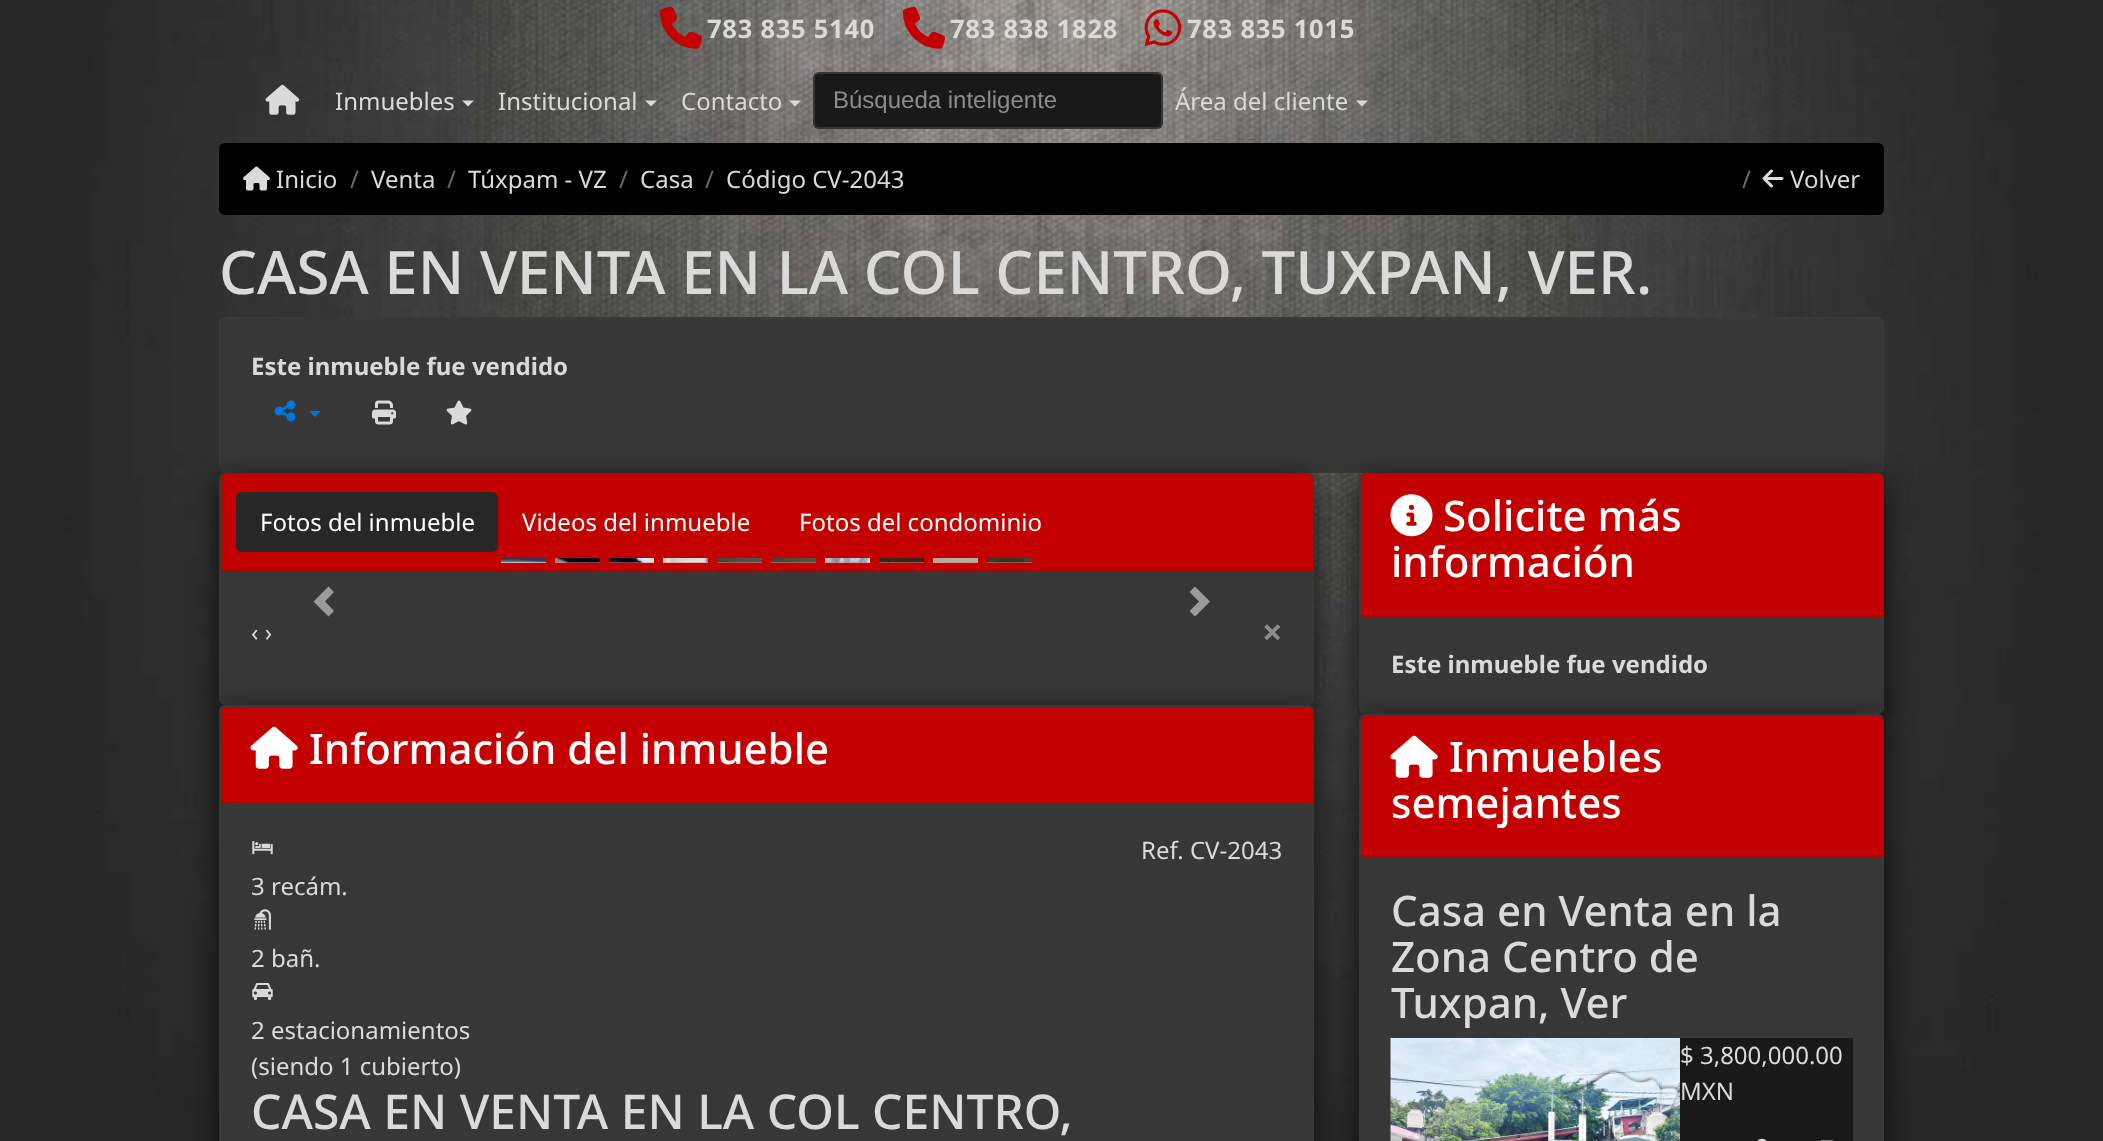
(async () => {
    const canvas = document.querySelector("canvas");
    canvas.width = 2103;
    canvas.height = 1141;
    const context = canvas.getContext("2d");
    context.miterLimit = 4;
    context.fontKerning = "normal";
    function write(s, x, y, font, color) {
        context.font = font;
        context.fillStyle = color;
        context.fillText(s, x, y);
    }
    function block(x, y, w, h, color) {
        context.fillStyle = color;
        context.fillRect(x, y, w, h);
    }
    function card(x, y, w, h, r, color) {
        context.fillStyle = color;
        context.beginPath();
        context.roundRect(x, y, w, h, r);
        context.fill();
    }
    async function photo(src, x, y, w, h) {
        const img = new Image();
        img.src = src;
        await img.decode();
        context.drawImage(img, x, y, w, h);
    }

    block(0, 0, 2103, 1141, "rgb(255, 255, 255)");
    await photo("media/1.png", 0, 0, 2103, 1141);
    await photo("media/2.png", 660, 6, 42, 43);
    context.letterSpacing = "0.75px";
    write("783 835 5140", 707, 38, "bold 25.5px Noto Sans", "rgb(218, 218, 218)");
    await photo("media/3.png", 903, 6, 42, 43);
    write("783 838 1828", 950, 38, "bold 25.5px Noto Sans", "rgb(218, 218, 218)");
    await photo("media/4.png", 1144, 9, 38, 37);
    write("783 835 1015", 1187, 38, "bold 25.5px Noto Sans", "rgb(218, 218, 218)");
    await photo("media/5.png", 265, 84, 35, 31);
    context.letterSpacing = "0px";
    write("Inmuebles", 335, 110, "24px Noto Sans", "rgb(218, 218, 218)");
    context.beginPath();
    context.moveTo(462, 100.5);
    context.lineTo(474, 100.5);
    context.lineTo(468, 106.5);
    context.closePath();
    context.fill();
    write("Institucional", 498, 110, "24px Noto Sans", "rgb(218, 218, 218)");
    context.beginPath();
    context.moveTo(645, 100.5);
    context.lineTo(657, 100.5);
    context.lineTo(651, 106.5);
    context.closePath();
    context.fill();
    write("Contacto", 681, 110, "24px Noto Sans", "rgb(218, 218, 218)");
    context.beginPath();
    context.moveTo(789, 100.5);
    context.lineTo(801, 100.5);
    context.lineTo(795, 106.5);
    context.closePath();
    context.fill();
    card(813, 72, 350, 57, 6, "rgb(25, 25, 25)");
    context.beginPath();
    context.roundRect(814, 73, 348, 55, 5);
    context.strokeStyle = "rgba(222, 222, 222, 0.15)";
    context.lineWidth = 2;
    context.stroke();
    write("Búsqueda inteligente", 833, 108, "24px Liberation Sans", "rgb(140, 140, 140)");
    write("Área del cliente", 1175, 110, "24px Noto Sans", "rgb(218, 218, 218)");
    context.beginPath();
    context.moveTo(1356, 100.5);
    context.lineTo(1368, 100.5);
    context.lineTo(1362, 106.5);
    context.closePath();
    context.fill();
    card(219, 143, 1665, 72, 6, "rgb(0, 0, 0)");
    await photo("media/6.png", 243, 166, 27, 25);
    write("Inicio", 276, 188, "24px Noto Sans", "rgb(218, 218, 218)");
    write("/", 350, 188, "24px Noto Sans", "rgb(99, 108, 114)");
    write("Venta", 371, 188, "24px Noto Sans", "rgb(218, 218, 218)");
    write("/", 447, 188, "24px Noto Sans", "rgb(99, 108, 114)");
    write("Túxpam - VZ", 468, 188, "24px Noto Sans", "rgb(218, 218, 218)");
    write("/", 619, 188, "24px Noto Sans", "rgb(99, 108, 114)");
    write("Casa", 640, 188, "24px Noto Sans", "rgb(218, 218, 218)");
    write("/", 705, 188, "24px Noto Sans", "rgb(99, 108, 114)");
    write("Código CV-2043", 726, 188, "24px Noto Sans", "rgb(218, 218, 218)");
    write("/", 1742, 188, "24px Noto Sans", "rgb(99, 108, 114)");
    await photo("media/7.png", 1762, 169, 22, 19);
    write("Volver", 1790, 188, "24px Noto Sans", "rgb(218, 218, 218)");
    write("CASA EN VENTA EN LA COL CENTRO, TUXPAN, VER.", 219, 294, "500 60px Noto Sans", "rgb(218, 218, 218)");
    context.fillStyle = "rgb(55, 55, 55)";
    context.beginPath();
    context.roundRect(220, 318, 1663, 154, 5);
    context.fill();
    context.strokeStyle = "rgb(57, 57, 57)";
    context.stroke();
    write("Este inmueble fue vendido", 251, 375, "bold 24px Noto Sans", "rgb(218, 218, 218)");
    await photo("media/8.png", 274, 400, 22, 22);
    context.fillStyle = "rgb(2, 117, 216)";
    context.beginPath();
    context.moveTo(309, 411);
    context.lineTo(321, 411);
    context.lineTo(315, 417);
    context.closePath();
    context.fill();
    await photo("media/9.png", 372, 400, 24, 25);
    await photo("media/10.png", 446, 400, 26, 25);
    context.fillStyle = "rgba(0, 0, 0, 0.7)";
    context.filter = "blur(15px)";
    context.beginPath();
    context.roundRect(219, 480, 1095, 233, 6);
    context.fill();
    context.filter = "none";
    context.fillStyle = "rgb(55, 55, 55)";
    context.beginPath();
    context.roundRect(220, 474, 1093, 230, 5);
    context.fill();
    context.stroke();
    context.fillStyle = "rgb(195, 1, 1)";
    context.beginPath();
    context.roundRect(221, 474, 1092, 98, [5, 5, 0, 0]);
    context.fill();
    block(221, 570, 1092, 2, "rgb(171, 1, 1)");
    card(236, 492, 262, 60, 6, "rgb(39, 39, 39)");
    write("Fotos del inmueble", 260, 531, "24px Noto Sans", "rgb(255, 255, 255)");
    write("Videos del inmueble", 522, 531, "24px Noto Sans", "rgb(255, 255, 255)");
    write("Fotos del condominio", 799, 531, "24px Noto Sans", "rgb(255, 255, 255)");
    block(501, 562, 45, 1, "rgb(255, 255, 255)");
    await photo("media/11.png", 501, 558, 45, 5);
    block(555, 562, 45, 1, "rgb(225, 128, 128)");
    await photo("media/12.png", 555, 558, 45, 5);
    block(609, 562, 45, 1, "rgb(225, 128, 128)");
    await photo("media/13.png", 609, 558, 45, 5);
    block(663, 562, 45, 1, "rgb(225, 128, 128)");
    await photo("media/14.png", 663, 558, 45, 5);
    block(717, 562, 45, 1, "rgb(225, 128, 128)");
    await photo("media/15.png", 717, 558, 45, 5);
    block(771, 562, 45, 1, "rgb(225, 128, 128)");
    await photo("media/16.png", 771, 558, 45, 5);
    block(825, 562, 45, 1, "rgb(225, 128, 128)");
    await photo("media/17.png", 825, 558, 45, 5);
    block(879, 562, 45, 1, "rgb(225, 128, 128)");
    await photo("media/18.png", 879, 558, 45, 5);
    block(933, 562, 45, 1, "rgb(225, 128, 128)");
    await photo("media/19.png", 933, 558, 45, 5);
    block(987, 562, 45, 1, "rgb(225, 128, 128)");
    await photo("media/20.png", 987, 558, 45, 5);
    context.fillStyle = "rgb(155, 155, 155)";
    context.beginPath();
    context.moveTo(328.5, 586.5);
    context.lineTo(313.5, 601.5);
    context.lineTo(328.5, 616.5);
    context.lineTo(334, 611);
    context.lineTo(325, 601.5);
    context.lineTo(334, 592);
    context.closePath();
    context.fill();
    context.save();
    context.beginPath();
    context.rect(1190, 587, 30, 30);
    context.clip();
    context.beginPath();
    context.moveTo(1195, 586.5);
    context.lineTo(1189.5, 592);
    context.lineTo(1199, 601.5);
    context.lineTo(1189.5, 611);
    context.lineTo(1195, 616.5);
    context.lineTo(1210, 601.5);
    context.closePath();
    context.fill();
    context.restore();
    write("‹ ›", 251, 641, "24px Noto Sans", "rgb(218, 218, 218)");
    write("×", 1262, 645, "bold 36px Noto Sans", "rgb(140, 140, 140)");
    context.fillStyle = "rgba(0, 0, 0, 0.7)";
    context.filter = "blur(15px)";
    context.beginPath();
    context.roundRect(219, 713, 1095, 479, 6);
    context.fill();
    context.filter = "none";
    context.fillStyle = "rgb(55, 55, 55)";
    context.beginPath();
    context.roundRect(220, 706, 1093, 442, 5);
    context.fill();
    context.stroke();
    context.fillStyle = "rgb(195, 1, 1)";
    context.beginPath();
    context.roundRect(221, 707, 1092, 96, [5, 5, 0, 0]);
    context.fill();
    block(221, 801, 1092, 2, "rgb(171, 1, 1)");
    await photo("media/21.png", 250, 726, 48, 43);
    write("Información del inmueble", 309, 764, "500 42px Noto Sans", "rgb(255, 255, 255)");
    write("Ref. CV-2043", 1141, 859, "24px Noto Sans", "rgb(218, 218, 218)");
    await photo("media/22.png", 252, 840, 21, 15);
    write("3 recám.", 251, 895, "24px Noto Sans", "rgb(218, 218, 218)");
    await photo("media/23.png", 254, 909, 17, 21);
    write("2 bañ.", 251, 967, "24px Noto Sans", "rgb(218, 218, 218)");
    await photo("media/24.png", 252, 983, 21, 17);
    write("2 estacionamientos", 251, 1039, "24px Noto Sans", "rgb(218, 218, 218)");
    write("(siendo 1 cubierto)", 251, 1075, "24px Noto Sans", "rgb(218, 218, 218)");
    write("CASA EN VENTA EN LA COL CENTRO,", 251, 1129, "500 48px Noto Sans", "rgb(218, 218, 218)");
    context.fillStyle = "rgba(0, 0, 0, 0.7)";
    context.filter = "blur(15px)";
    context.beginPath();
    context.roundRect(1359, 480, 525, 242, 6);
    context.fill();
    context.filter = "none";
    context.fillStyle = "rgb(55, 55, 55)";
    context.beginPath();
    context.roundRect(1360, 474, 523, 239, 5);
    context.fill();
    context.stroke();
    context.fillStyle = "rgb(195, 1, 1)";
    context.beginPath();
    context.roundRect(1361, 474, 522, 143, [5, 5, 0, 0]);
    context.fill();
    block(1361, 615, 522, 2, "rgb(171, 1, 1)");
    await photo("media/25.png", 1390, 494, 43, 43);
    write("Solicite más", 1443, 531, "500 42px Noto Sans", "rgb(255, 255, 255)");
    write("información", 1391, 577, "500 42px Noto Sans", "rgb(255, 255, 255)");
    write("Este inmueble fue vendido", 1391, 673, "bold 24px Noto Sans", "rgb(218, 218, 218)");
    context.fillStyle = "rgba(0, 0, 0, 0.7)";
    context.filter = "blur(15px)";
    context.beginPath();
    context.roundRect(1359, 722, 525, 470, 6);
    context.fill();
    context.filter = "none";
    context.fillStyle = "rgb(55, 55, 55)";
    context.beginPath();
    context.roundRect(1360, 715, 523, 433, 5);
    context.fill();
    context.stroke();
    context.fillStyle = "rgb(195, 1, 1)";
    context.beginPath();
    context.roundRect(1361, 716, 522, 141, [5, 5, 0, 0]);
    context.fill();
    block(1361, 855, 522, 2, "rgb(171, 1, 1)");
    await photo("media/21.png", 1390, 735, 48, 43);
    write("Inmuebles", 1449, 772, "500 42px Noto Sans", "rgb(255, 255, 255)");
    write("semejantes", 1391, 818, "500 42px Noto Sans", "rgb(255, 255, 255)");
    write("Casa en Venta en la", 1391, 926, "500 42px Noto Sans", "rgb(218, 218, 218)");
    write("Zona Centro de", 1391, 972, "500 42px Noto Sans", "rgb(218, 218, 218)");
    write("Tuxpan, Ver", 1391, 1018, "500 42px Noto Sans", "rgb(218, 218, 218)");
    await photo("media/26.png", 1390, 1038, 290, 103);
    block(1680, 1038, 173, 103, "rgb(25, 25, 25)");
    write("$ 3,800,000.00", 1680, 1064, "24px Noto Sans", "rgb(218, 218, 218)");
    write("MXN", 1680, 1100, "24px Noto Sans", "rgb(218, 218, 218)");
    await photo("media/27.png", 1757, 1138, 10, 3);
    await photo("media/28.png", 1820, 1140, 14, 1);
})();
